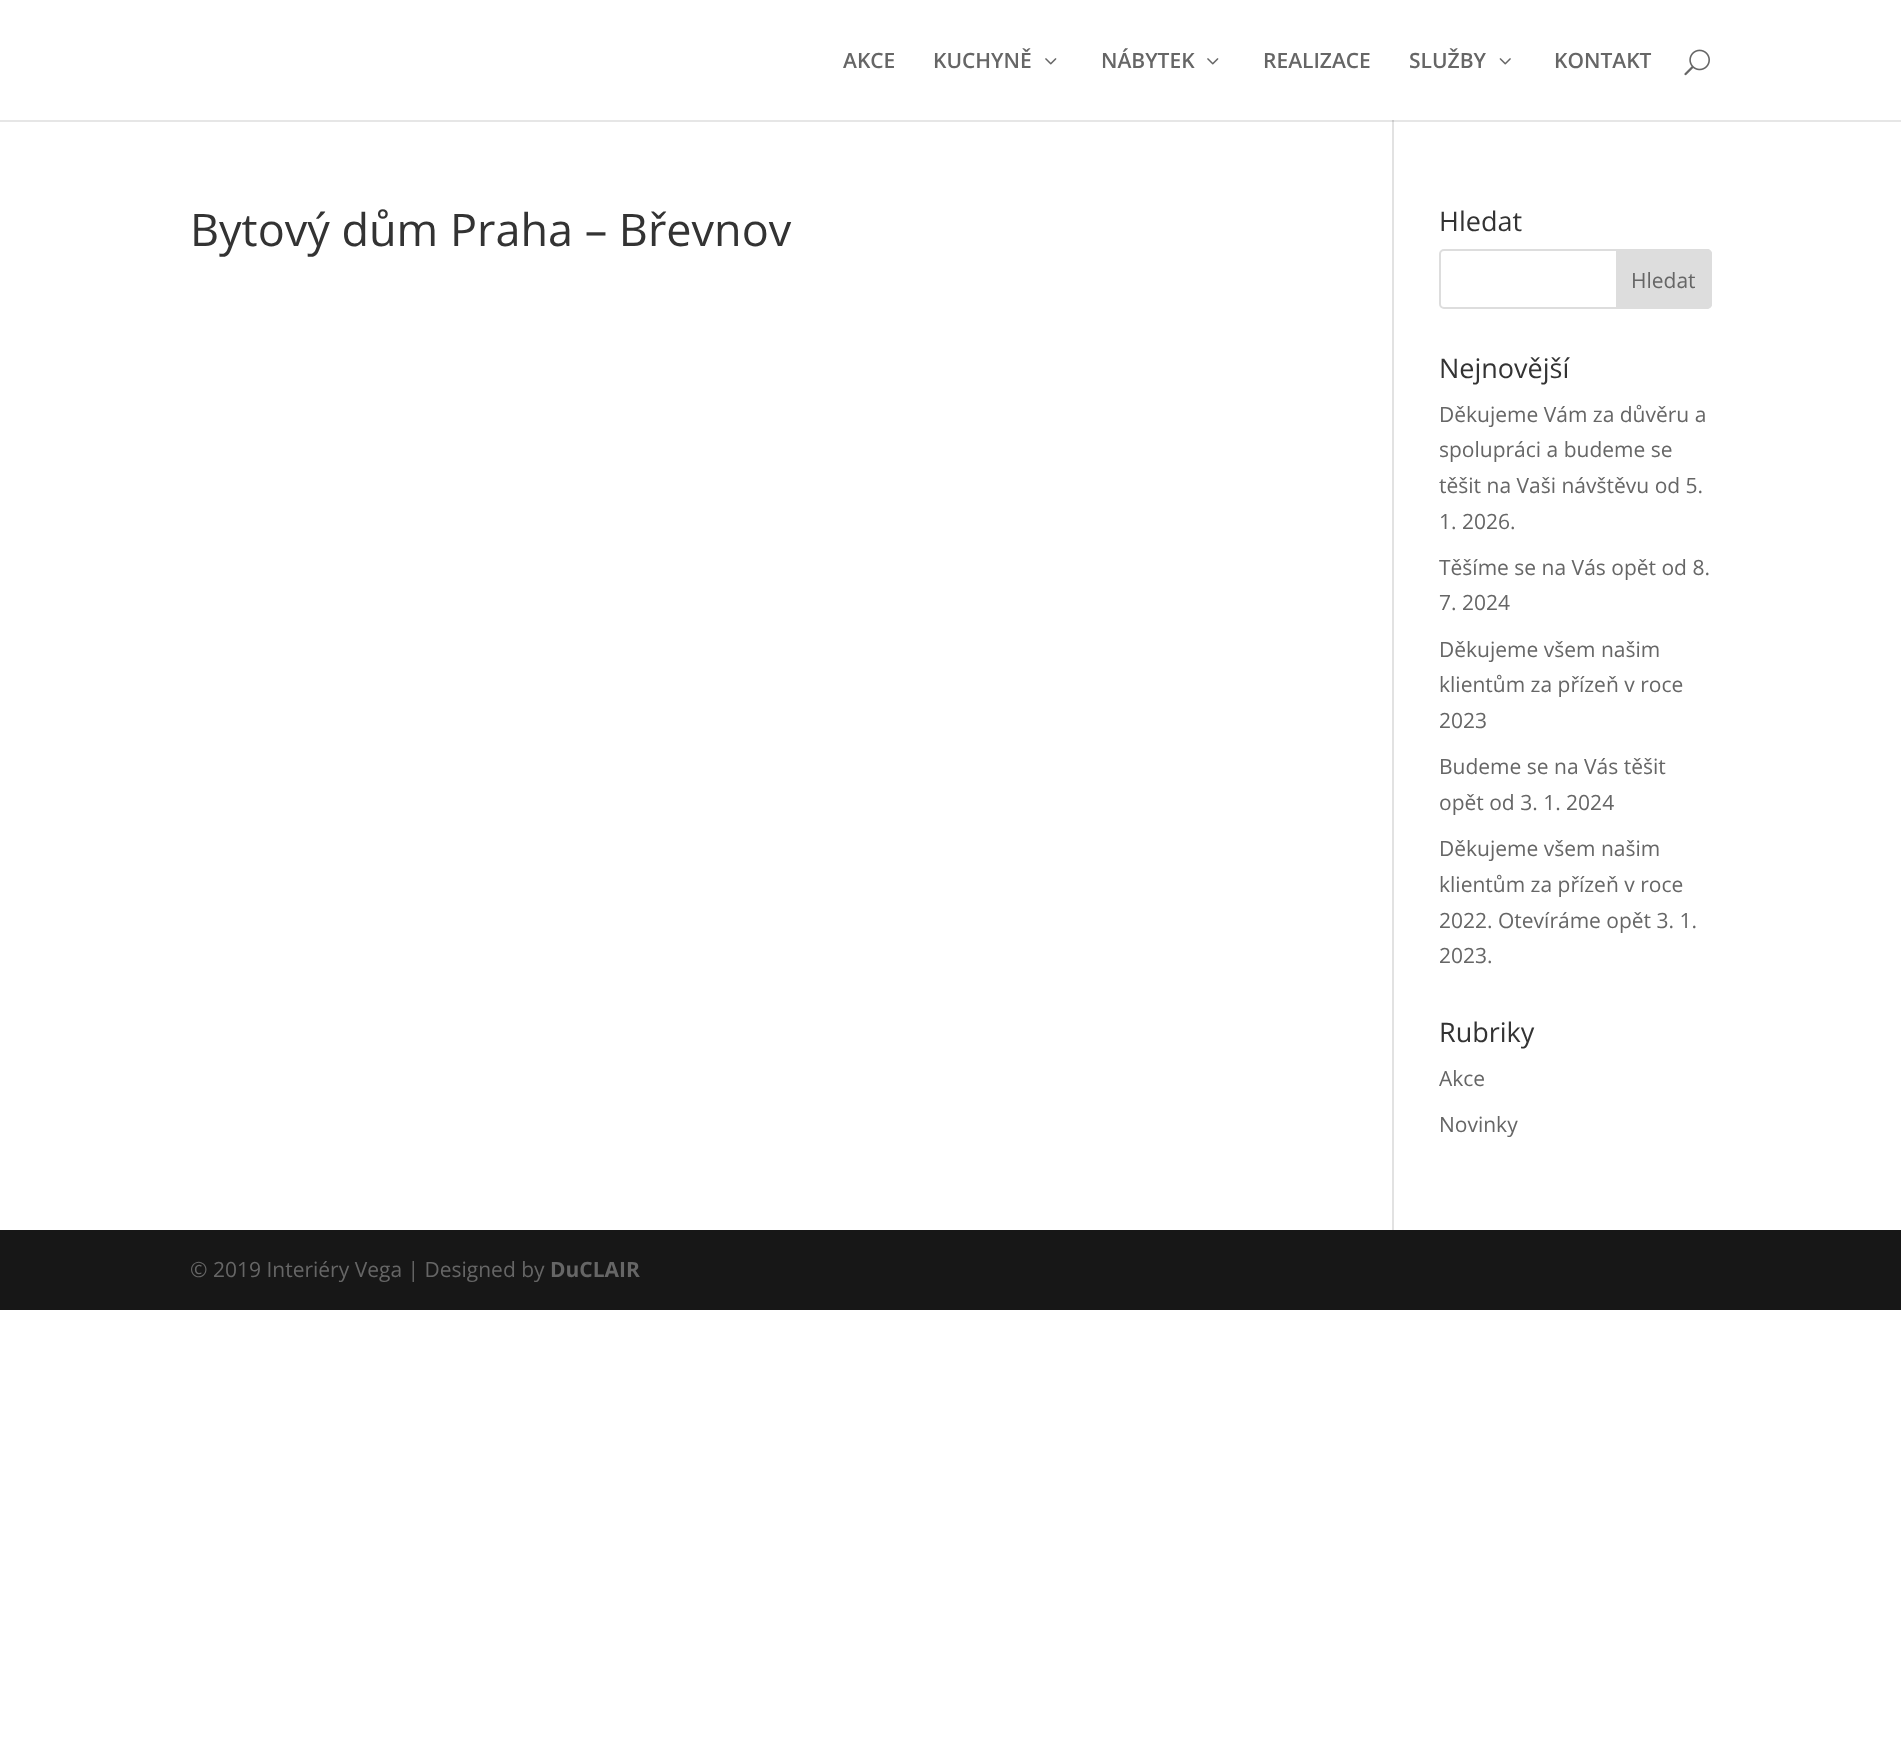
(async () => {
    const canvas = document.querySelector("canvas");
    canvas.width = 1901;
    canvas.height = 1748;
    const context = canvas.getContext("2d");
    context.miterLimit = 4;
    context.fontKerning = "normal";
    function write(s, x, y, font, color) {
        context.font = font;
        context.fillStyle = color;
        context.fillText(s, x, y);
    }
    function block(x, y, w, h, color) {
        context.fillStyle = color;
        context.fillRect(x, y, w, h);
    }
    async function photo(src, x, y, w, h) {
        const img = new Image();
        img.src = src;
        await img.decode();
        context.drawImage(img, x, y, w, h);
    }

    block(0, 0, 1901, 1748, "rgb(255, 255, 255)");
    block(0, 120, 1901, 2, "rgb(230, 230, 230)");
    write("AKCE", 843, 68, "600 21px Open Sans", "rgb(102, 102, 102)");
    write("KUCHYNĚ", 933, 68, "600 21px Open Sans", "rgb(102, 102, 102)");
    await photo("media/1.png", 1045, 58, 12, 7);
    write("NÁBYTEK", 1101, 68, "600 21px Open Sans", "rgb(102, 102, 102)");
    await photo("media/1.png", 1207, 58, 12, 7);
    write("REALIZACE", 1263, 68, "600 21px Open Sans", "rgb(102, 102, 102)");
    write("SLUŽBY", 1409, 68, "600 21px Open Sans", "rgb(102, 102, 102)");
    await photo("media/2.png", 1499, 58, 12, 7);
    write("KONTAKT", 1554, 68, "600 21px Open Sans", "rgb(102, 102, 102)");
    await photo("media/3.png", 1684, 49, 26, 27);
    block(1392, 120, 2, 1110, "rgb(226, 226, 226)");
    block(1392, 120, 2, 2, "rgb(203, 203, 203)");
    write("Bytový dům Praha – Břevnov", 190, 246, "45px Open Sans", "rgb(51, 51, 51)");
    write("Hledat", 1439, 231, "27px Open Sans", "rgb(51, 51, 51)");
    context.beginPath();
    context.roundRect(1440, 250, 271, 58, 4);
    context.strokeStyle = "rgb(221, 221, 221)";
    context.lineWidth = 2;
    context.stroke();
    context.fillStyle = "rgb(221, 221, 221)";
    context.beginPath();
    context.roundRect(1617, 250, 94, 58, [0, 4, 4, 0]);
    context.fill();
    context.stroke();
    write("Hledat", 1631, 288, "21px Open Sans", "rgb(102, 102, 102)");
    write("Nejnovější", 1439, 378, "27px Open Sans", "rgb(51, 51, 51)");
    write("Děkujeme Vám za důvěru a", 1439, 422, "21px Open Sans", "rgb(102, 102, 102)");
    write("spolupráci a budeme se", 1439, 457, "21px Open Sans", "rgb(102, 102, 102)");
    write("těšit na Vaši návštěvu od 5.", 1439, 493, "21px Open Sans", "rgb(102, 102, 102)");
    write("1. 2026.", 1439, 529, "21px Open Sans", "rgb(102, 102, 102)");
    write("Těšíme se na Vás opět od 8.", 1439, 575, "21px Open Sans", "rgb(102, 102, 102)");
    write("7. 2024", 1439, 610, "21px Open Sans", "rgb(102, 102, 102)");
    write("Děkujeme všem našim", 1439, 657, "21px Open Sans", "rgb(102, 102, 102)");
    write("klientům za přízeň v roce", 1439, 692, "21px Open Sans", "rgb(102, 102, 102)");
    write("2023", 1439, 728, "21px Open Sans", "rgb(102, 102, 102)");
    write("Budeme se na Vás těšit", 1439, 774, "21px Open Sans", "rgb(102, 102, 102)");
    write("opět od 3. 1. 2024", 1439, 810, "21px Open Sans", "rgb(102, 102, 102)");
    write("Děkujeme všem našim", 1439, 856, "21px Open Sans", "rgb(102, 102, 102)");
    write("klientům za přízeň v roce", 1439, 892, "21px Open Sans", "rgb(102, 102, 102)");
    write("2022. Otevíráme opět 3. 1.", 1439, 928, "21px Open Sans", "rgb(102, 102, 102)");
    write("2023.", 1439, 963, "21px Open Sans", "rgb(102, 102, 102)");
    write("Rubriky", 1439, 1042, "27px Open Sans", "rgb(51, 51, 51)");
    write("Akce", 1439, 1086, "21px Open Sans", "rgb(102, 102, 102)");
    write("Novinky", 1439, 1132, "21px Open Sans", "rgb(102, 102, 102)");
    block(0, 1230, 1901, 80, "rgb(23, 23, 23)");
    write("© 2019 Interiéry Vega | Designed by", 190, 1277, "21px Open Sans", "rgb(102, 102, 102)");
    write("DuCLAIR", 550, 1277, "bold 21px Open Sans", "rgb(102, 102, 102)");
})();
